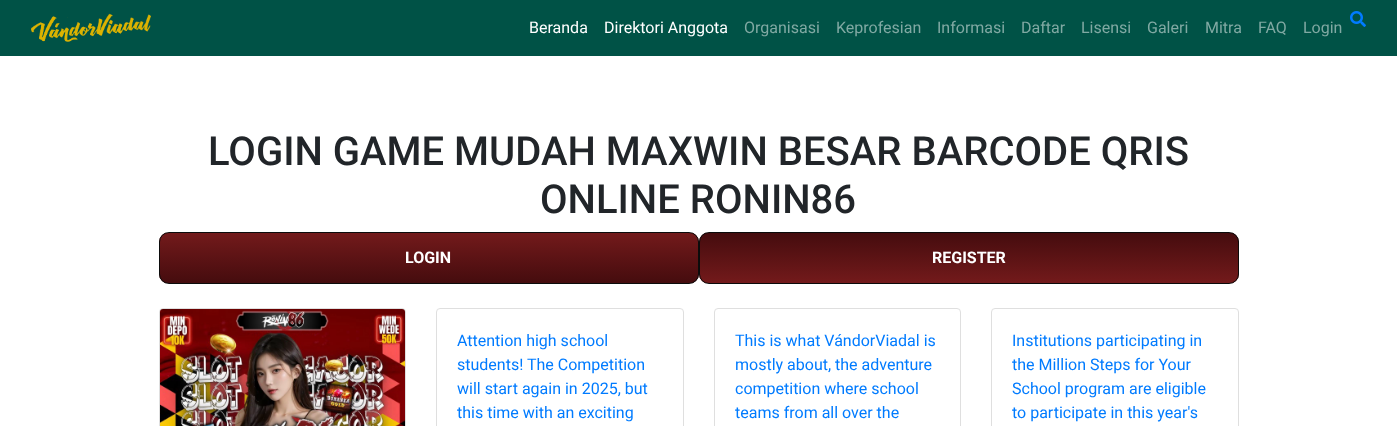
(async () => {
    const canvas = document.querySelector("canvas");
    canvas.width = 1397;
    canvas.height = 426;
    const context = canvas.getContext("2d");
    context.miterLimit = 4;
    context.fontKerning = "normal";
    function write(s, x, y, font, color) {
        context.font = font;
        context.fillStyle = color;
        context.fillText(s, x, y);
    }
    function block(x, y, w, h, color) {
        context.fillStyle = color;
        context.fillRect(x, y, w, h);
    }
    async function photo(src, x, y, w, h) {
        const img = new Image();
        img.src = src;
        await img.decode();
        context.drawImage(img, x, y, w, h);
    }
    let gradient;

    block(0, 0, 1397, 426, "rgb(255, 255, 255)");
    block(0, 0, 1397, 56, "rgb(0, 82, 70)");
    await photo("media/1.png", 31, 13, 120, 29);
    write("Beranda", 529, 33, "16px Roboto", "rgb(255, 255, 255)");
    write("Direktori Anggota", 604, 33, "16px Roboto", "rgb(255, 255, 255)");
    write("Organisasi", 744, 33, "16px Roboto", "rgb(128, 169, 163)");
    write("Keprofesian", 836, 33, "16px Roboto", "rgb(128, 169, 163)");
    write("Informasi", 937, 33, "16px Roboto", "rgb(128, 169, 163)");
    write("Daftar", 1021, 33, "16px Roboto", "rgb(128, 169, 163)");
    write("Lisensi", 1081, 33, "16px Roboto", "rgb(128, 169, 163)");
    write("Galeri", 1147, 33, "16px Roboto", "rgb(128, 169, 163)");
    write("Mitra", 1205, 33, "16px Roboto", "rgb(128, 169, 163)");
    write("FAQ", 1258, 33, "16px Roboto", "rgb(128, 169, 163)");
    write("Login", 1303, 33, "16px Roboto", "rgb(128, 169, 163)");
    await photo("media/2.png", 1350, 11, 16, 16);
    write("LOGIN GAME MUDAH MAXWIN BESAR BARCODE QRIS", 208, 165, "500 40px Roboto", "rgb(33, 37, 41)");
    write("ONLINE RONIN86", 540, 213, "500 40px Roboto", "rgb(33, 37, 41)");
    context.save();
    context.beginPath();
    context.roundRect(159, 232, 540, 52, 10);
    context.clip();
    gradient = context.createLinearGradient(429, 233, 429, 283);
    gradient.addColorStop(0, "rgb(115, 26, 27)");
    gradient.addColorStop(1, "rgb(69, 12, 14)");
    context.fillStyle = gradient;
    context.fillRect(159, 233, 540, 50);
    context.restore();
    context.beginPath();
    context.roundRect(159.5, 232.5, 539, 51, 9.5);
    context.strokeStyle = "rgb(12, 12, 12)";
    context.stroke();
    write("LOGIN", 405, 263, "bold 16px Roboto", "rgb(255, 255, 255)");
    context.save();
    context.beginPath();
    context.roundRect(699, 232, 540, 52, 10);
    context.clip();
    gradient = context.createLinearGradient(969, 233, 969, 283);
    gradient.addColorStop(0, "rgb(69, 12, 14)");
    gradient.addColorStop(1, "rgb(115, 26, 27)");
    context.fillStyle = gradient;
    context.fillRect(699, 233, 540, 50);
    context.restore();
    context.beginPath();
    context.roundRect(699.5, 232.5, 539, 51, 9.5);
    context.strokeStyle = "rgb(11, 11, 11)";
    context.stroke();
    write("REGISTER", 932, 263, "bold 16px Roboto", "rgb(255, 255, 255)");
    context.beginPath();
    context.roundRect(159.5, 308.5, 246, 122, 3.5);
    context.strokeStyle = "rgb(223, 223, 223)";
    context.stroke();
    await photo("media/3.png", 160, 309, 245, 117);
    context.beginPath();
    context.roundRect(436.5, 308.5, 247, 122, 3.5);
    context.stroke();
    write("Attention high school", 457, 346, "16px Roboto", "rgb(0, 123, 255)");
    write("students! The Competition", 457, 370, "16px Roboto", "rgb(0, 123, 255)");
    write("will start again in 2025, but", 457, 394, "16px Roboto", "rgb(0, 123, 255)");
    write("this time with an exciting", 457, 418, "16px Roboto", "rgb(0, 123, 255)");
    context.beginPath();
    context.roundRect(714.5, 308.5, 246, 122, 3.5);
    context.stroke();
    write("This is what VándorViadal is", 735, 346, "16px Roboto", "rgb(0, 123, 255)");
    write("mostly about, the adventure", 735, 370, "16px Roboto", "rgb(0, 123, 255)");
    write("competition where school", 735, 394, "16px Roboto", "rgb(0, 123, 255)");
    write("teams from all over the", 735, 418, "16px Roboto", "rgb(0, 123, 255)");
    context.beginPath();
    context.roundRect(991.5, 308.5, 247, 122, 3.5);
    context.stroke();
    write("Institutions participating in", 1012, 346, "16px Roboto", "rgb(0, 123, 255)");
    write("the Million Steps for Your", 1012, 370, "16px Roboto", "rgb(0, 123, 255)");
    write("School program are eligible", 1012, 394, "16px Roboto", "rgb(0, 123, 255)");
    write("to participate in this year's", 1012, 418, "16px Roboto", "rgb(0, 123, 255)");
})();
